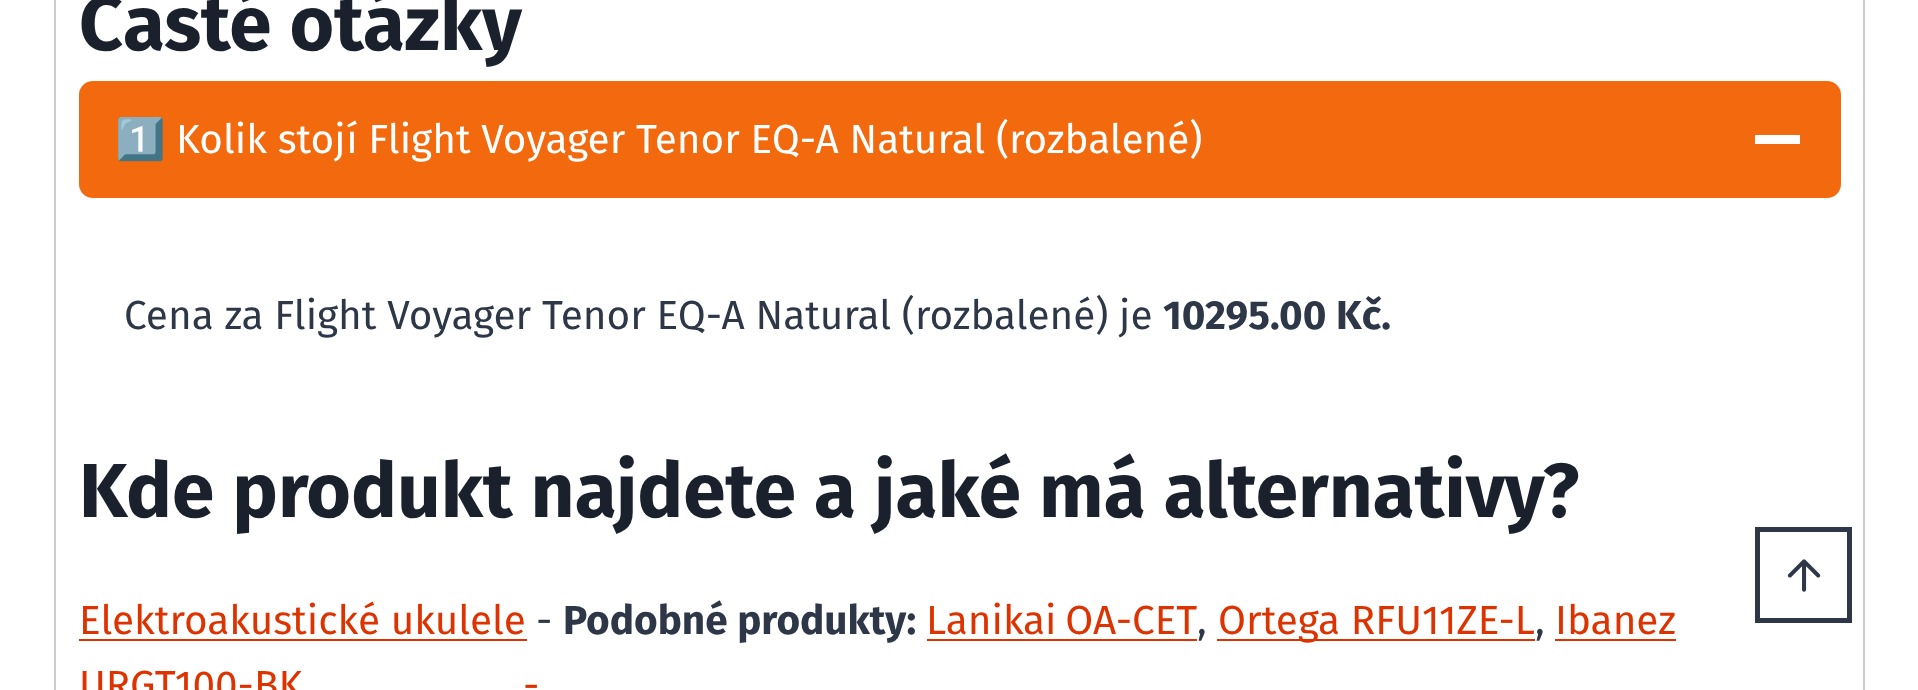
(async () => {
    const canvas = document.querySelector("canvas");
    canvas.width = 1918;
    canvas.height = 690;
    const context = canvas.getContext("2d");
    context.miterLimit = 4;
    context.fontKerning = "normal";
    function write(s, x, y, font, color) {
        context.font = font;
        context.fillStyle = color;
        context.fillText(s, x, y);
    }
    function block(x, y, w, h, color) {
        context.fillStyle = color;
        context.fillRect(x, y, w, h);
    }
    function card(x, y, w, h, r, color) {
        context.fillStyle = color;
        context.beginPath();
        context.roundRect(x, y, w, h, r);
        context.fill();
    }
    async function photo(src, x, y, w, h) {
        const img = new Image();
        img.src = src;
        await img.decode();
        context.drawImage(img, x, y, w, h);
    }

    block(0, 0, 1918, 690, "rgb(255, 255, 255)");
    context.strokeStyle = "rgb(204, 204, 204)";
    context.lineWidth = 2;
    context.strokeRect(55, -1, 1809, 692);
    write("Časté otázky", 79, 50, "bold 76.5px Fira Sans", "rgb(26, 32, 44)");
    card(79, 81, 1762, 117, 14, "rgb(243, 105, 14)");
    write("1️⃣", 115, 153, "40.5px Noto Color Emoji", "rgb(255, 255, 255)");
    write("Kolik stojí Flight Voyager Tenor EQ-A Natural (rozbalené)", 176, 153, "40.5px Fira Sans", "rgb(255, 255, 255)");
    block(1755, 135, 45, 9, "rgb(255, 255, 255)");
    write("Cena za Flight Voyager Tenor EQ-A Natural (rozbalené) je", 124, 329, "40.5px Fira Sans", "rgb(45, 55, 72)");
    write("10295.00 Kč.", 1163, 329, "bold 40.5px Fira Sans", "rgb(45, 55, 72)");
    write("Kde produkt najdete a jaké má alternativy?", 79, 517, "bold 76.5px Fira Sans", "rgb(26, 32, 44)");
    write("Elektroakustické ukulele", 79, 634, "40.5px Fira Sans", "rgb(221, 51, 0)");
    block(79, 639, 448, 2, "rgb(221, 51, 0)");
    write("-", 536, 634, "40.5px Fira Sans", "rgb(45, 55, 72)");
    write("Podobné produkty:", 563, 634, "bold 40.5px Fira Sans", "rgb(45, 55, 72)");
    context.wordSpacing = "-2px";
    write("Lanikai OA-CET", 926, 634, "40.5px Fira Sans", "rgb(221, 51, 0)");
    block(927, 639, 270, 2, "rgb(221, 51, 0)");
    block(1217, 639, 318, 2, "rgb(221, 51, 0)");
    context.wordSpacing = "0px";
    write("Ortega RFU11ZE-L", 1218, 634, "40.5px Fira Sans", "rgb(221, 51, 0)");
    write("Ibanez", 1555, 634, "40.5px Fira Sans", "rgb(221, 51, 0)");
    block(1555, 639, 121, 2, "rgb(221, 51, 0)");
    write(",", 1197, 634, "40.5px Fira Sans", "rgb(45, 55, 72)");
    write(",", 1535, 634, "40.5px Fira Sans", "rgb(45, 55, 72)");
    write("URGT100-BK", 79, 699, "40.5px Fira Sans", "rgb(221, 51, 0)");
    write("-", 523, 699, "40.5px Fira Sans", "rgb(221, 51, 0)");
    context.strokeStyle = "rgb(45, 55, 72)";
    context.lineWidth = 5;
    context.strokeRect(1757.5, 529.5, 92, 91);
    await photo("media/1.png", 1787, 559, 34, 33);
})();
